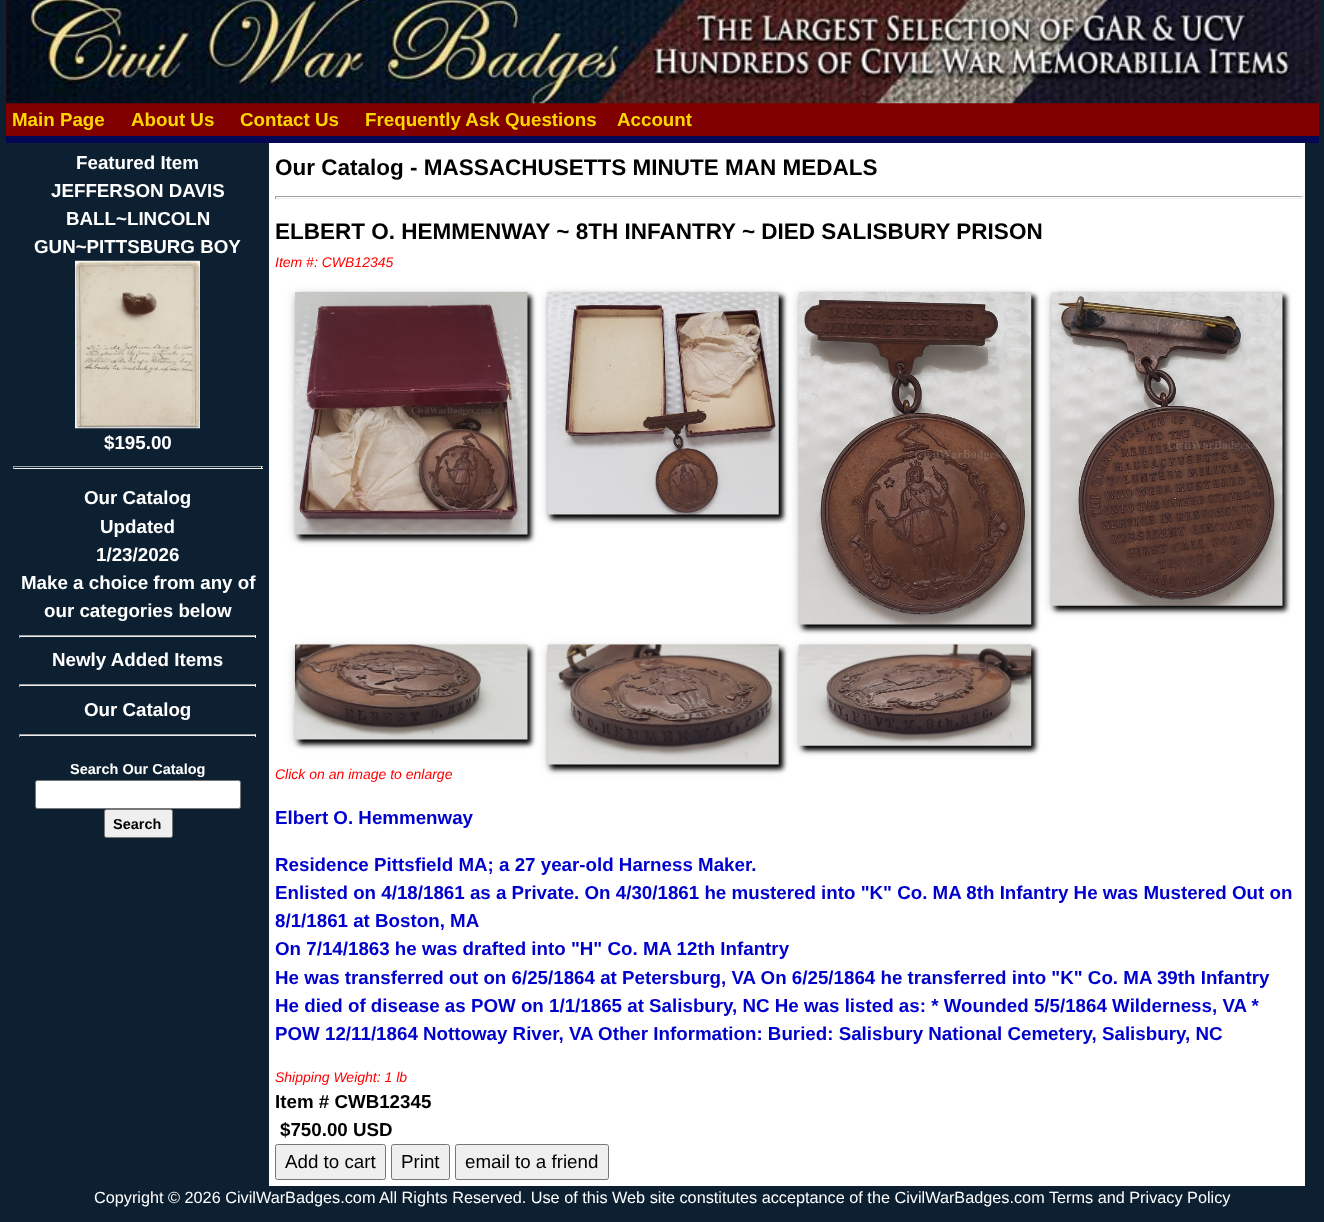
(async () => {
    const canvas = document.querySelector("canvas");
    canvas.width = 1324;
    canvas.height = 1222;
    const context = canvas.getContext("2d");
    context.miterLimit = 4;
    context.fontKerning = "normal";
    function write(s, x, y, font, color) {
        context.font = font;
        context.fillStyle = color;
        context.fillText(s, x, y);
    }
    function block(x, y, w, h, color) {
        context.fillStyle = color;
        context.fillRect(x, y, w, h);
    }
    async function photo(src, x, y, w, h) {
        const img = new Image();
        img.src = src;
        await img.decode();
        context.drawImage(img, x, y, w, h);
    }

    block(0, 0, 1324, 1222, "rgb(13, 32, 49)");
    block(6, 0, 1313, 136, "rgb(128, 0, 0)");
    await photo("media/1.png", 6, 0, 1313, 104);
    block(6, 136, 1313, 7, "rgb(3, 7, 84)");
    write("Main Page", 12, 126, "bold 18.75px Liberation Sans", "rgb(255, 215, 0)");
    write("About Us", 131, 126, "bold 18.75px Liberation Sans", "rgb(255, 215, 0)");
    write("Contact Us", 240, 126, "bold 18.75px Liberation Sans", "rgb(255, 215, 0)");
    write("Frequently Ask Questions", 365, 126, "bold 18.75px Liberation Sans", "rgb(255, 215, 0)");
    write("Account", 617, 126, "bold 18.75px Liberation Sans", "rgb(255, 215, 0)");
    write("Featured Item", 76, 169, "bold 18.75px Liberation Sans", "rgb(255, 255, 255)");
    write("JEFFERSON DAVIS", 51, 197, "bold 18.75px Liberation Sans", "rgb(255, 255, 255)");
    write("BALL~LINCOLN", 66, 225, "bold 18.75px Liberation Sans", "rgb(255, 255, 255)");
    write("GUN~PITTSBURG BOY", 34, 253, "bold 18.75px Liberation Sans", "rgb(255, 255, 255)");
    await photo("media/2.png", 75, 260, 125, 169);
    write("$195.00", 104, 449, "bold 18.75px Liberation Sans", "rgb(255, 255, 255)");
    block(13, 466, 250, 1, "rgb(159, 159, 159)");
    block(261, 466, 1, 3, "rgb(238, 238, 238)");
    block(13, 468, 250, 1, "rgb(238, 238, 238)");
    block(13, 466, 1, 3, "rgb(159, 159, 159)");
    write("Our Catalog", 84, 504, "bold 18.75px Liberation Sans", "rgb(255, 255, 255)");
    write("Updated", 100, 533, "bold 18.75px Liberation Sans", "rgb(255, 255, 255)");
    write("1/23/2026", 96, 561, "bold 18.75px Liberation Sans", "rgb(255, 255, 255)");
    write("Make a choice from any of", 21, 589, "bold 18.75px Liberation Sans", "rgb(255, 255, 255)");
    write("our categories below", 44, 617, "bold 18.75px Liberation Sans", "rgb(255, 255, 255)");
    block(19, 635, 237, 1, "rgb(159, 159, 159)");
    block(255, 635, 1, 3, "rgb(238, 238, 238)");
    block(19, 636, 237, 1, "rgb(238, 238, 238)");
    block(19, 635, 1, 3, "rgb(159, 159, 159)");
    write("Newly Added Items", 52, 666, "bold 18.75px Liberation Sans", "rgb(255, 255, 255)");
    block(19, 684, 237, 1, "rgb(159, 159, 159)");
    block(255, 684, 1, 3, "rgb(238, 238, 238)");
    block(19, 685, 237, 1, "rgb(238, 238, 238)");
    block(19, 684, 1, 3, "rgb(159, 159, 159)");
    write("Our Catalog", 84, 716, "bold 18.75px Liberation Sans", "rgb(255, 255, 255)");
    block(19, 734, 237, 1, "rgb(159, 159, 159)");
    block(255, 734, 1, 3, "rgb(238, 238, 238)");
    block(19, 735, 237, 1, "rgb(238, 238, 238)");
    block(19, 734, 1, 3, "rgb(159, 159, 159)");
    write("Search Our Catalog", 70, 774, "bold 14.5px Liberation Sans", "rgb(255, 255, 255)");
    context.beginPath();
    context.roundRect(35.5, 780.5, 205, 28, 2);
    context.fill();
    context.strokeStyle = "rgb(118, 118, 118)";
    context.stroke();
    context.fillStyle = "rgb(239, 239, 239)";
    context.beginPath();
    context.roundRect(104.5, 809.5, 68, 28, 2);
    context.fill();
    context.stroke();
    write("Search", 113, 829, "bold 14.5px Liberation Sans", "rgb(0, 0, 0)");
    block(269, 143, 1036, 1043, "rgb(255, 255, 255)");
    write("Our Catalog - MASSACHUSETTS MINUTE MAN MEDALS", 275, 175, "bold 22.5px Liberation Sans", "rgb(0, 0, 0)");
    block(275, 196, 1028, 1, "rgb(159, 159, 159)");
    block(1301, 196, 1, 3, "rgb(238, 238, 238)");
    block(275, 198, 1028, 1, "rgb(238, 238, 238)");
    block(275, 196, 1, 3, "rgb(159, 159, 159)");
    write("ELBERT O. HEMMENWAY ~ 8TH INFANTRY ~ DIED SALISBURY PRISON", 275, 239, "bold 22.5px Liberation Sans", "rgb(0, 0, 0)");
    write("Item #: CWB12345", 275, 267, "italic 14px Liberation Sans", "rgb(255, 0, 0)");
    context.fillStyle = "rgba(0, 0, 0, 0.12)";
    context.filter = "blur(6px)";
    context.beginPath();
    context.rect(295, 295, 233, 243);
    context.fill();
    context.filter = "none";
    context.fillStyle = "rgba(0, 0, 0, 0.16)";
    context.filter = "blur(3px)";
    context.beginPath();
    context.rect(295, 295, 233, 243);
    context.fill();
    context.filter = "none";
    context.fillStyle = "rgb(0, 0, 0)";
    context.filter = "blur(2.5px)";
    context.beginPath();
    context.rect(299, 296, 232, 243);
    context.fill();
    context.filter = "none";
    await photo("media/3.png", 295, 292, 233, 243);
    context.fillStyle = "rgba(0, 0, 0, 0.12)";
    context.filter = "blur(6px)";
    context.beginPath();
    context.rect(548, 295, 231, 223);
    context.fill();
    context.filter = "none";
    context.fillStyle = "rgba(0, 0, 0, 0.16)";
    context.filter = "blur(3px)";
    context.beginPath();
    context.rect(548, 295, 231, 223);
    context.fill();
    context.filter = "none";
    context.fillStyle = "rgb(0, 0, 0)";
    context.filter = "blur(2.5px)";
    context.beginPath();
    context.rect(551, 296, 232, 223);
    context.fill();
    context.filter = "none";
    await photo("media/4.png", 547, 292, 232, 223);
    context.fillStyle = "rgba(0, 0, 0, 0.12)";
    context.filter = "blur(6px)";
    context.beginPath();
    context.rect(799, 295, 232, 333);
    context.fill();
    context.filter = "none";
    context.fillStyle = "rgba(0, 0, 0, 0.16)";
    context.filter = "blur(3px)";
    context.beginPath();
    context.rect(799, 295, 232, 333);
    context.fill();
    context.filter = "none";
    context.fillStyle = "rgb(0, 0, 0)";
    context.filter = "blur(2.5px)";
    context.beginPath();
    context.rect(803, 296, 232, 333);
    context.fill();
    context.filter = "none";
    await photo("media/5.png", 798, 292, 234, 333);
    context.fillStyle = "rgba(0, 0, 0, 0.12)";
    context.filter = "blur(6px)";
    context.beginPath();
    context.rect(1051, 295, 232, 314);
    context.fill();
    context.filter = "none";
    context.fillStyle = "rgba(0, 0, 0, 0.16)";
    context.filter = "blur(3px)";
    context.beginPath();
    context.rect(1051, 295, 232, 314);
    context.fill();
    context.filter = "none";
    context.fillStyle = "rgb(0, 0, 0)";
    context.filter = "blur(2.5px)";
    context.beginPath();
    context.rect(1055, 296, 231, 314);
    context.fill();
    context.filter = "none";
    await photo("media/6.png", 1051, 292, 232, 314);
    context.fillStyle = "rgba(0, 0, 0, 0.12)";
    context.filter = "blur(6px)";
    context.beginPath();
    context.rect(295, 648, 233, 95);
    context.fill();
    context.filter = "none";
    context.fillStyle = "rgba(0, 0, 0, 0.16)";
    context.filter = "blur(3px)";
    context.beginPath();
    context.rect(295, 648, 233, 95);
    context.fill();
    context.filter = "none";
    context.fillStyle = "rgb(0, 0, 0)";
    context.filter = "blur(2.5px)";
    context.beginPath();
    context.rect(299, 649, 232, 95);
    context.fill();
    context.filter = "none";
    await photo("media/7.png", 295, 644, 233, 96);
    context.fillStyle = "rgba(0, 0, 0, 0.12)";
    context.filter = "blur(6px)";
    context.beginPath();
    context.rect(548, 648, 231, 120);
    context.fill();
    context.filter = "none";
    context.fillStyle = "rgba(0, 0, 0, 0.16)";
    context.filter = "blur(3px)";
    context.beginPath();
    context.rect(548, 648, 231, 120);
    context.fill();
    context.filter = "none";
    context.fillStyle = "rgb(0, 0, 0)";
    context.filter = "blur(2.5px)";
    context.beginPath();
    context.rect(551, 649, 232, 120);
    context.fill();
    context.filter = "none";
    await photo("media/8.png", 547, 644, 232, 121);
    context.fillStyle = "rgba(0, 0, 0, 0.12)";
    context.filter = "blur(6px)";
    context.beginPath();
    context.rect(799, 648, 232, 101);
    context.fill();
    context.filter = "none";
    context.fillStyle = "rgba(0, 0, 0, 0.16)";
    context.filter = "blur(3px)";
    context.beginPath();
    context.rect(799, 648, 232, 101);
    context.fill();
    context.filter = "none";
    context.fillStyle = "rgb(0, 0, 0)";
    context.filter = "blur(2.5px)";
    context.beginPath();
    context.rect(803, 649, 232, 101);
    context.fill();
    context.filter = "none";
    await photo("media/9.png", 798, 644, 234, 102);
    write("Click on an image to enlarge", 275, 779, "italic 14px Liberation Sans", "rgb(255, 0, 0)");
    write("Elbert O. Hemmenway", 275, 824, "bold 18.75px Liberation Sans", "rgb(0, 0, 205)");
    write("Residence Pittsfield MA; a 27 year-old Harness Maker.", 275, 871, "bold 18.75px Liberation Sans", "rgb(0, 0, 205)");
    write("Enlisted on 4/18/1861 as a Private. On 4/30/1861 he mustered into \"K\" Co. MA 8th Infantry He was Mustered Out on", 275, 899, "bold 18.75px Liberation Sans", "rgb(0, 0, 205)");
    write("8/1/1861 at Boston, MA", 275, 927, "bold 18.75px Liberation Sans", "rgb(0, 0, 205)");
    write("On 7/14/1863 he was drafted into \"H\" Co. MA 12th Infantry", 275, 955, "bold 18.75px Liberation Sans", "rgb(0, 0, 205)");
    write("He was transferred out on 6/25/1864 at Petersburg, VA On 6/25/1864 he transferred into \"K\" Co. MA 39th Infantry", 275, 984, "bold 18.75px Liberation Sans", "rgb(0, 0, 205)");
    write("He died of disease as POW on 1/1/1865 at Salisbury, NC He was listed as: * Wounded 5/5/1864 Wilderness, VA *", 275, 1012, "bold 18.75px Liberation Sans", "rgb(0, 0, 205)");
    write("POW 12/11/1864 Nottoway River, VA Other Information: Buried: Salisbury National Cemetery, Salisbury, NC", 275, 1040, "bold 18.75px Liberation Sans", "rgb(0, 0, 205)");
    write("Shipping Weight: 1 lb", 275, 1082, "italic 14px Liberation Sans", "rgb(255, 0, 0)");
    write("Item # CWB12345", 275, 1108, "bold 18.75px Liberation Sans", "rgb(0, 0, 0)");
    write("$750.00 USD", 280, 1136, "bold 18.75px Liberation Sans", "rgb(0, 0, 0)");
    context.fillStyle = "rgb(239, 239, 239)";
    context.beginPath();
    context.roundRect(275.5, 1144.5, 110, 35, 2);
    context.fill();
    context.stroke();
    write("Add to cart", 285, 1168, "18.75px Liberation Sans", "rgb(0, 0, 0)");
    context.fillStyle = "rgb(239, 239, 239)";
    context.beginPath();
    context.roundRect(391.5, 1144.5, 58, 35, 2);
    context.fill();
    context.stroke();
    write("Print", 401, 1168, "18.75px Liberation Sans", "rgb(0, 0, 0)");
    context.fillStyle = "rgb(239, 239, 239)";
    context.beginPath();
    context.roundRect(455.5, 1144.5, 153, 35, 2);
    context.fill();
    context.stroke();
    write("email to a friend", 465, 1168, "18.75px Liberation Sans", "rgb(0, 0, 0)");
    write("Copyright © 2026 CivilWarBadges.com All Rights Reserved. Use of this Web site constitutes acceptance of the CivilWarBadges.com Terms and Privacy Policy", 94, 1203, "16.25px Liberation Sans", "rgb(255, 255, 255)");
})();
